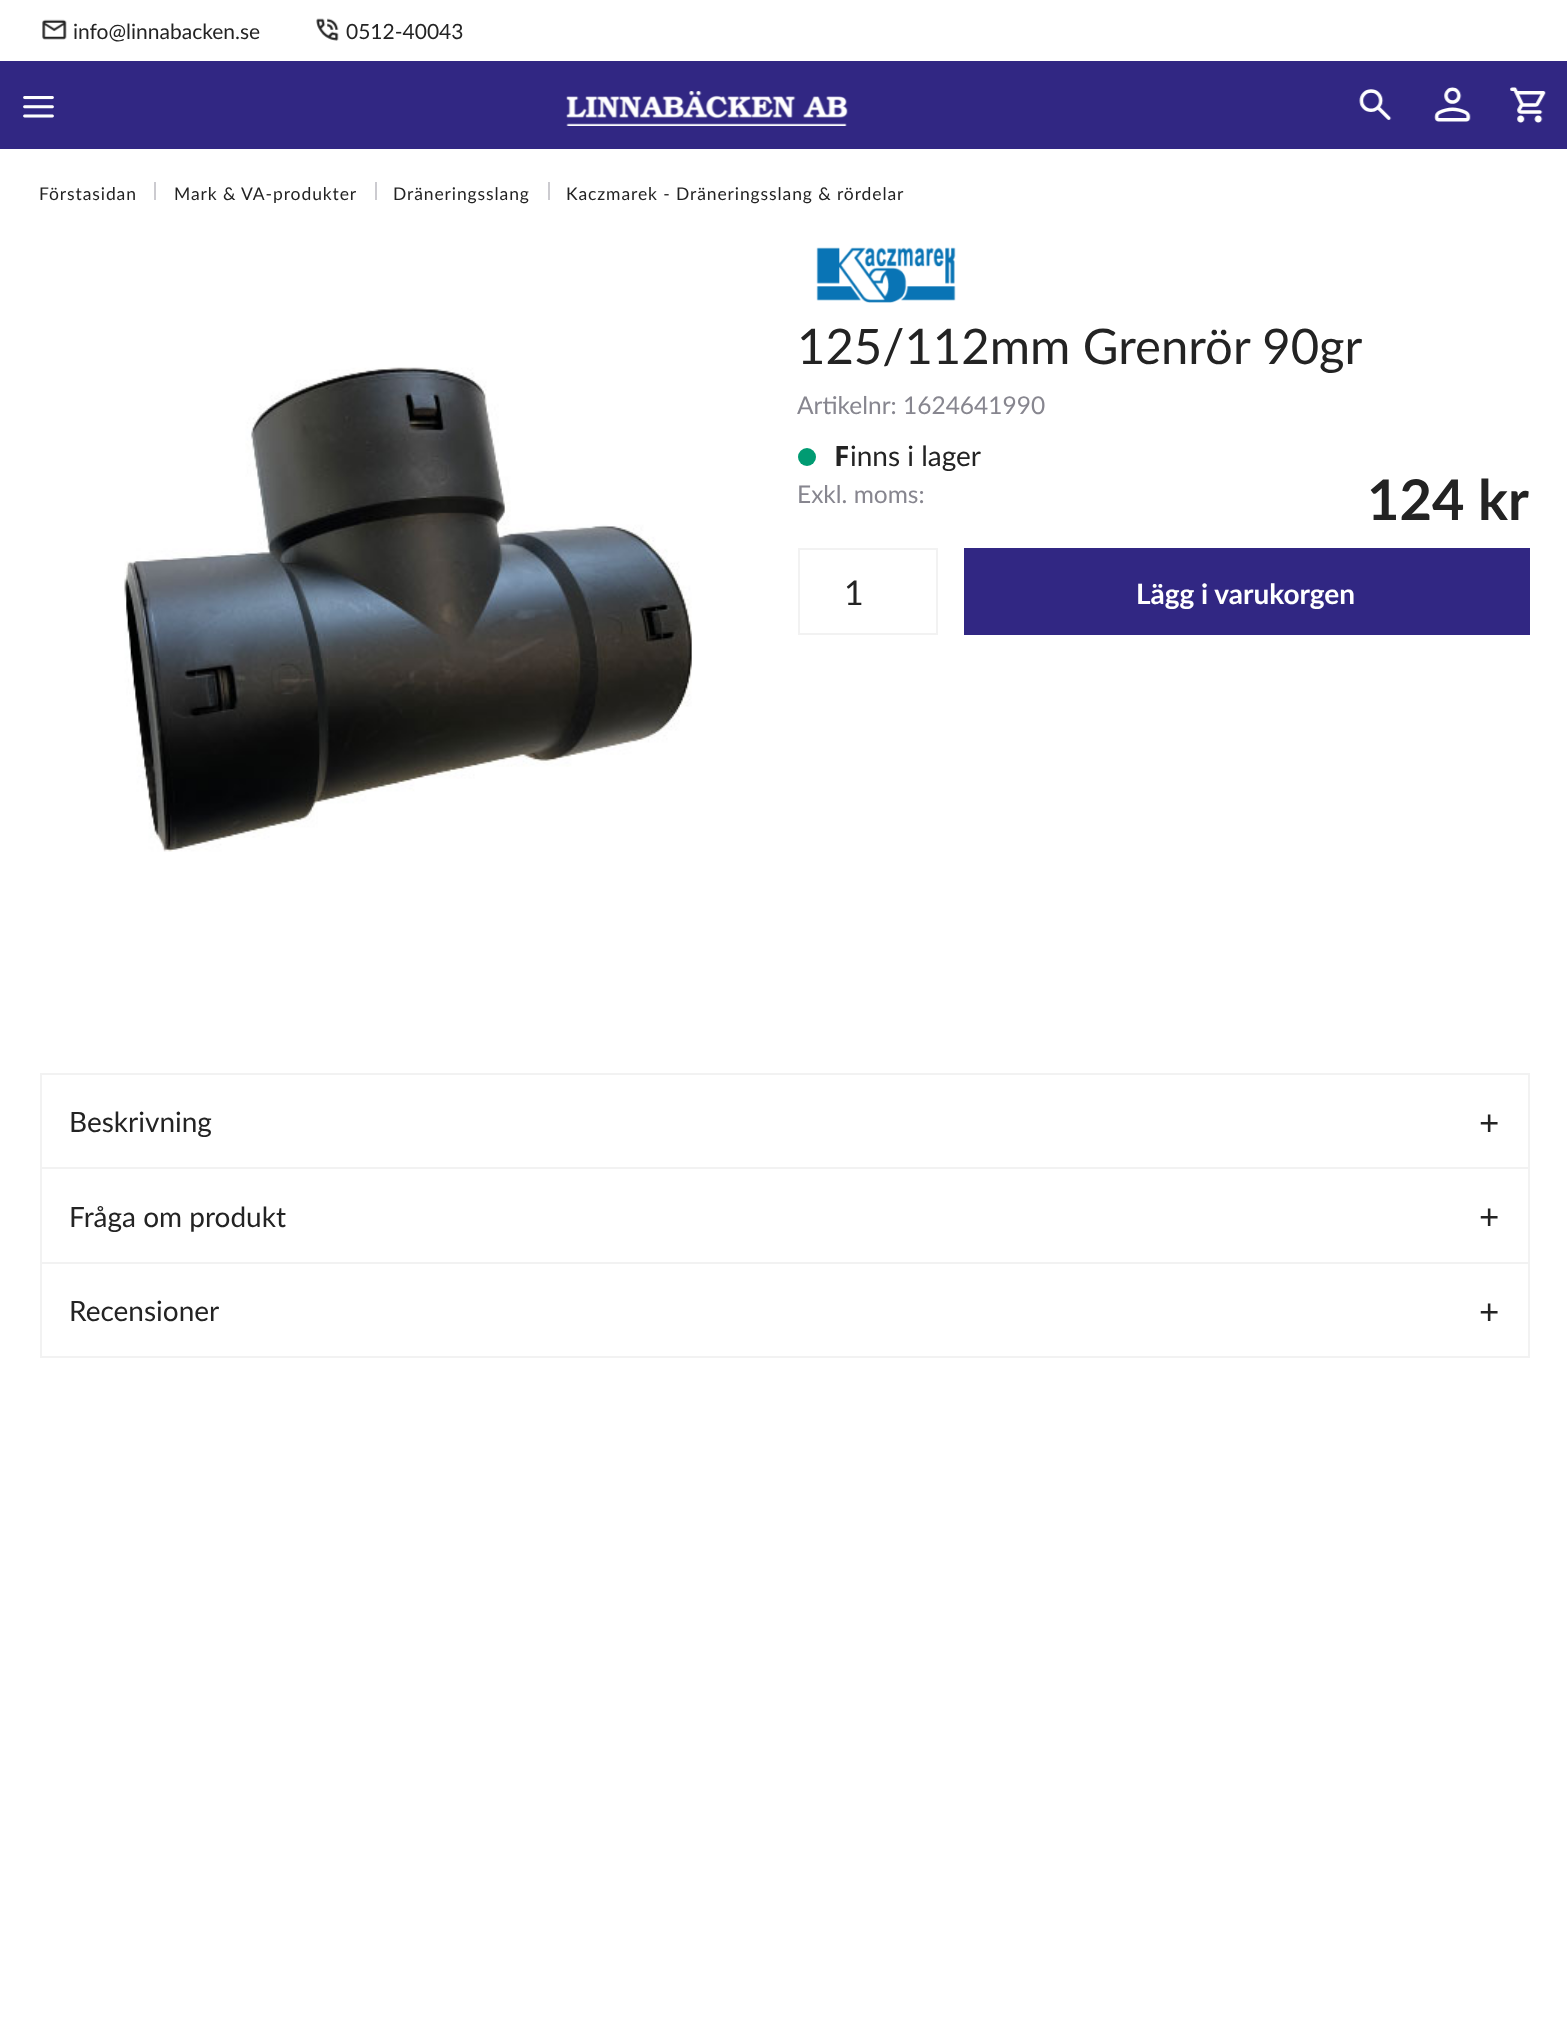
(async () => {
    const canvas = document.querySelector("canvas");
    canvas.width = 1567;
    canvas.height = 2018;
    const context = canvas.getContext("2d");
    context.miterLimit = 4;
    context.fontKerning = "normal";
    function write(s, x, y, font, color) {
        context.font = font;
        context.fillStyle = color;
        context.fillText(s, x, y);
    }
    function block(x, y, w, h, color) {
        context.fillStyle = color;
        context.fillRect(x, y, w, h);
    }
    async function photo(src, x, y, w, h) {
        const img = new Image();
        img.src = src;
        await img.decode();
        context.drawImage(img, x, y, w, h);
    }

    block(0, 0, 1567, 2018, "rgb(255, 255, 255)");
    await photo("media/1.png", 42, 19, 25, 21);
    write("info@linnabacken.se", 73, 39, "21px Lato", "rgb(35, 35, 35)");
    await photo("media/2.png", 316, 18, 23, 23);
    write("0512-40043", 346, 39, "21px Lato", "rgb(35, 35, 35)");
    block(0, 61, 1567, 88, "rgb(49, 39, 131)");
    await photo("media/3.png", 23, 96, 31, 22);
    await photo("media/4.png", 566, 91, 282, 35);
    await photo("media/5.png", 1359, 89, 33, 31);
    await photo("media/6.png", 1434, 87, 37, 35);
    await photo("media/7.png", 1510, 87, 36, 36);
    context.letterSpacing = "0.9px";
    write("Förstasidan", 39, 200, "17.5px Lato", "rgb(35, 35, 35)");
    block(154, 182, 2, 18, "rgb(204, 203, 208)");
    write("Mark & VA-produkter", 174, 200, "17.5px Lato", "rgb(35, 35, 35)");
    block(375, 182, 2, 18, "rgb(204, 203, 208)");
    write("Dräneringsslang", 393, 200, "17.5px Lato", "rgb(35, 35, 35)");
    block(548, 182, 2, 18, "rgb(204, 203, 208)");
    write("Kaczmarek - Dräneringsslang & rördelar", 566, 200, "17.5px Lato", "rgb(35, 35, 35)");
    await photo("media/8.png", 124, 367, 568, 485);
    await photo("media/9.png", 816, 247, 140, 56);
    context.letterSpacing = "0px";
    write("125/112mm Grenrör 90gr", 797, 364, "49px Lato", "rgb(35, 35, 35)");
    write("Artikelnr: 1624641990", 797, 414, "24.5px Lato", "rgb(135, 134, 143)");
    context.fillStyle = "rgb(0, 155, 114)";
    context.beginPath();
    context.arc(807, 457, 9, 0, Math.PI * 2);
    context.fill();
    write("F", 834, 466, "bold 28px Noto Sans", "rgb(35, 35, 35)");
    write("inns i lager", 850, 466, "28px Lato", "rgb(35, 35, 35)");
    write("Exkl. moms:", 797, 503, "24.5px Lato", "rgb(135, 134, 143)");
    write("124 kr", 1367, 520, "bold 56px Lato", "rgb(35, 35, 35)");
    context.strokeStyle = "rgb(242, 242, 242)";
    context.lineWidth = 2;
    context.strokeRect(799, 549, 138, 85);
    context.letterSpacing = "1px";
    write("1", 844, 605, "34px Lato", "rgb(35, 35, 35)");
    block(964, 548, 566, 87, "rgb(49, 39, 131)");
    context.letterSpacing = "0px";
    write("Lägg i varukorgen", 1136, 604, "bold 28px Lato", "rgb(255, 255, 255)");
    block(40, 1073, 1490, 2, "rgb(242, 242, 242)");
    block(1528, 1073, 2, 94, "rgb(242, 242, 242)");
    block(40, 1073, 2, 94, "rgb(242, 242, 242)");
    write("Beskrivning", 69, 1132, "28px Lato", "rgb(35, 35, 35)");
    write("+", 1479, 1135, "35px Lato", "rgb(35, 35, 35)");
    block(40, 1167, 1490, 2, "rgb(242, 242, 242)");
    block(1528, 1167, 2, 95, "rgb(242, 242, 242)");
    block(40, 1167, 2, 95, "rgb(242, 242, 242)");
    write("Fråga om produkt", 69, 1227, "28px Lato", "rgb(35, 35, 35)");
    write("+", 1479, 1229, "35px Lato", "rgb(35, 35, 35)");
    context.strokeRect(41, 1263, 1488, 94);
    write("Recensioner", 69, 1321, "28px Lato", "rgb(35, 35, 35)");
    write("+", 1479, 1324, "35px Lato", "rgb(35, 35, 35)");
})();
